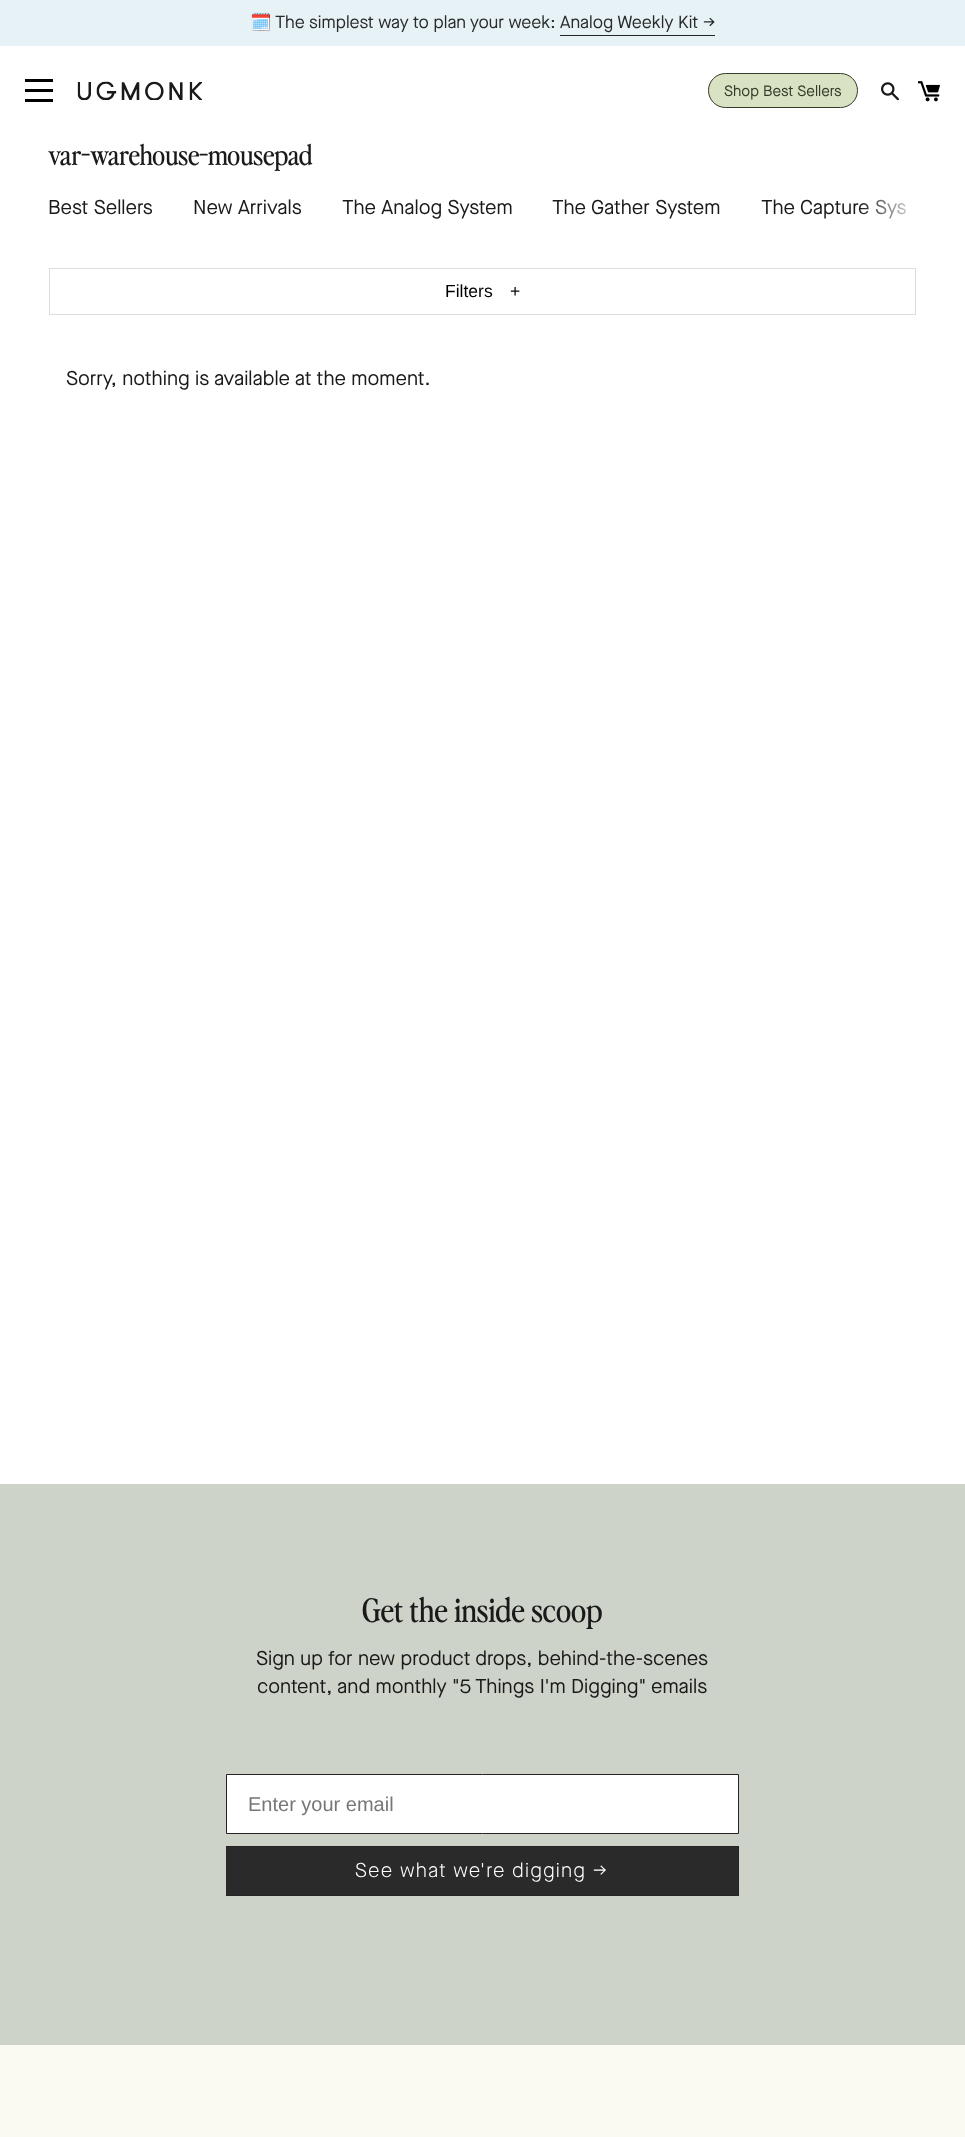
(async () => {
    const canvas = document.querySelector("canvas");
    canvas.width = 965;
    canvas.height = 2137;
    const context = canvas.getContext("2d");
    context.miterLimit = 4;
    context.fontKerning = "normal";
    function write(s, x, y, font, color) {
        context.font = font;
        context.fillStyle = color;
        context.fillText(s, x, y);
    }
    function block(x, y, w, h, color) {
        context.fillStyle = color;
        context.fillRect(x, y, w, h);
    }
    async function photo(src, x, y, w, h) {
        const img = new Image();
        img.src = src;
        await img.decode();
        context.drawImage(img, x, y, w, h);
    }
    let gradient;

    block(0, 0, 965, 2137, "rgb(255, 255, 255)");
    block(0, 0, 965, 46, "rgb(230, 242, 245)");
    write("🗓️", 250, 28, "17.5px Noto Color Emoji", "rgb(42, 42, 42)");
    write("The simplest way to plan your week:", 275, 28, "17.5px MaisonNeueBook", "rgb(42, 42, 42)");
    write("Analog Weekly Kit →", 560, 28, "17.5px MaisonNeueBook", "rgb(42, 42, 42)");
    block(560, 35, 155, 1, "rgb(38, 38, 38)");
    block(25, 79, 28, 3, "rgb(0, 0, 0)");
    block(25, 89, 28, 3, "rgb(0, 0, 0)");
    block(25, 99, 28, 3, "rgb(0, 0, 0)");
    await photo("media/1.png", 77, 81, 125, 19);
    context.fillStyle = "rgb(217, 226, 195)";
    context.beginPath();
    context.roundRect(708.5, 73.5, 149, 34, 17);
    context.fill();
    context.strokeStyle = "rgb(51, 59, 40)";
    context.stroke();
    write("Shop Best Sellers", 724, 96, "15px MaisonNeueBook", "rgb(51, 59, 40)");
    await photo("media/2.png", 881, 82, 18, 19);
    await photo("media/3.png", 918, 81, 22, 21);
    write("var-warehouse-mousepad", 48, 165, "27.5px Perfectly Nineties", "rgb(26, 26, 26)");
    write("Best Sellers", 48, 214, "20px MaisonNeueBook", "rgb(26, 26, 26)");
    write("New Arrivals", 193, 214, "20px MaisonNeueBook", "rgb(26, 26, 26)");
    write("The Analog System", 342, 214, "20px MaisonNeueBook", "rgb(26, 26, 26)");
    write("The Gather System", 552, 214, "20px MaisonNeueBook", "rgb(26, 26, 26)");
    write("The Capture Sys", 761, 214, "20px MaisonNeueBook", "rgb(26, 26, 26)");
    gradient = context.createLinearGradient(941, 207, 24, 208);
    gradient.addColorStop(0.02, "rgb(255, 255, 255)");
    gradient.addColorStop(0.09, "rgba(255, 255, 255, 0)");
    context.fillStyle = gradient;
    context.fillRect(860, 199, 46, 20);
    context.strokeStyle = "rgb(221, 221, 221)";
    context.strokeRect(49.5, 268.5, 866, 46);
    write("Filters", 445, 297, "17.5px Liberation Sans", "rgb(0, 0, 0)");
    write("+", 510, 297, "17.5px Liberation Sans", "rgb(0, 0, 0)");
    write("Sorry, nothing is available at the moment.", 66, 385, "20px MaisonNeueBook", "rgb(26, 26, 26)");
    block(0, 1484, 965, 561, "rgb(206, 211, 202)");
    write("Get the inside scoop", 362, 1622, "32.5px Perfectly Nineties", "rgb(26, 26, 26)");
    write("Sign up for new product drops, behind-the-scenes", 256, 1665, "20px MaisonNeueBook", "rgb(26, 26, 26)");
    write("content, and monthly \"5 Things I'm Digging\" emails", 257, 1693, "20px MaisonNeueBook", "rgb(26, 26, 26)");
    context.fillStyle = "rgb(255, 255, 255)";
    context.beginPath();
    context.rect(226.5, 1774.5, 512, 59);
    context.fill();
    context.strokeStyle = "rgb(36, 36, 36)";
    context.stroke();
    write("Enter your email", 248, 1811, "20px Liberation Sans", "rgb(119, 119, 119)");
    block(226, 1847, 512, 48, "rgb(42, 42, 42)");
    block(226, 1846, 513, 1, "rgb(36, 36, 36)");
    block(738, 1846, 1, 50, "rgb(36, 36, 36)");
    block(226, 1895, 513, 1, "rgb(36, 36, 36)");
    context.letterSpacing = "1.25px";
    write("See what we're digging →", 355, 1877, "300 20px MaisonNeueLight", "rgb(255, 255, 255)");
    block(0, 2045, 965, 92, "rgb(250, 250, 242)");
})();
